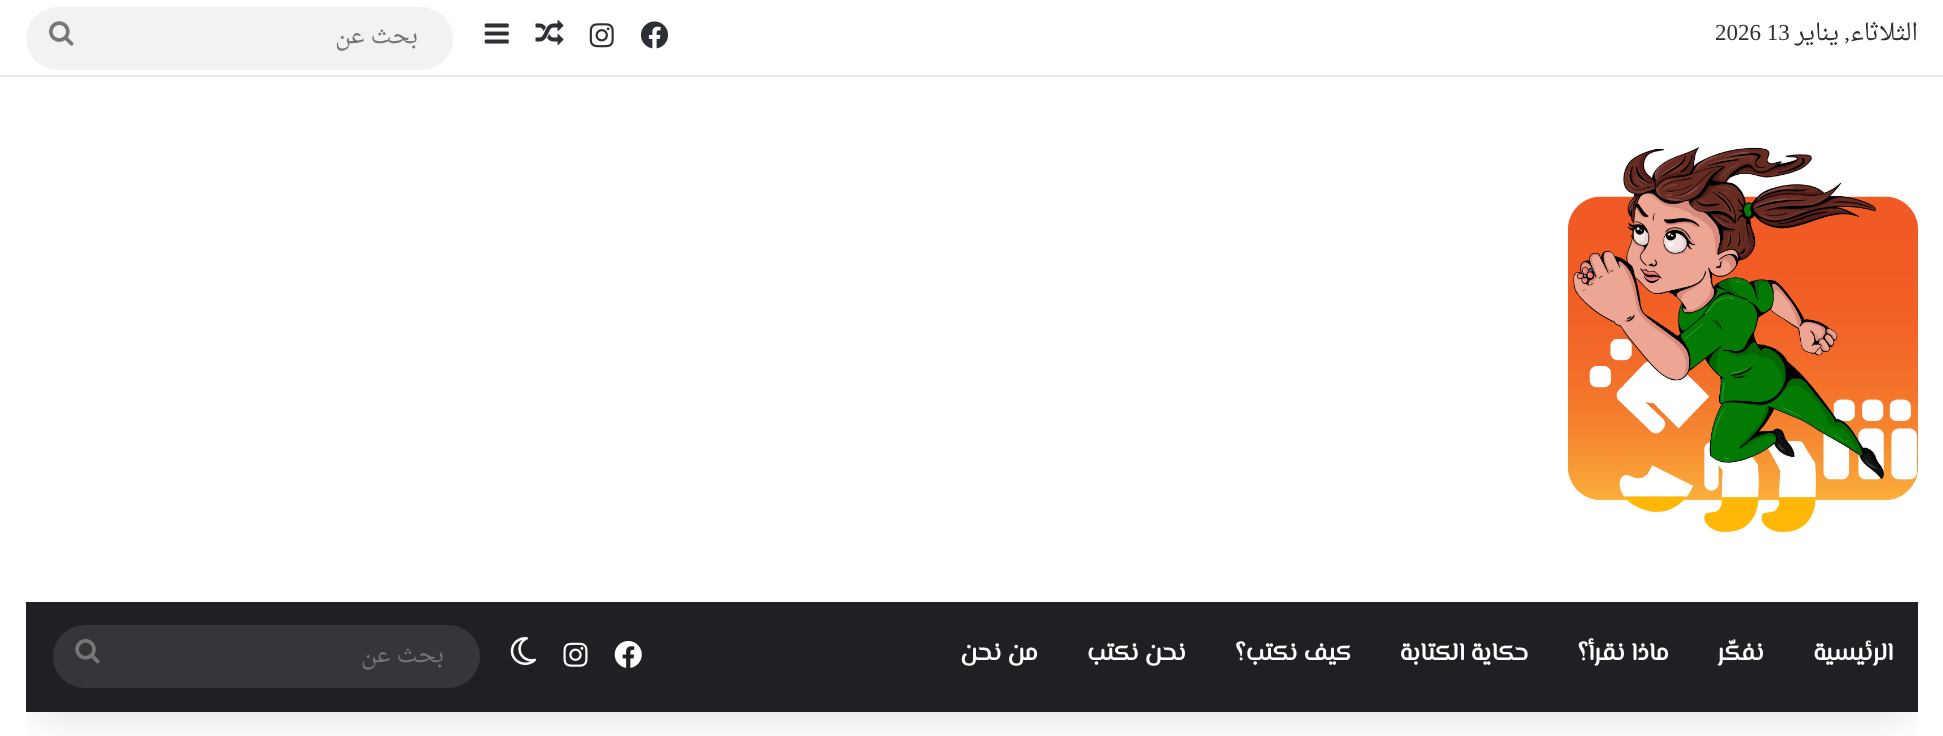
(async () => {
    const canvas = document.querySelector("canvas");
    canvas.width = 1943;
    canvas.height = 736;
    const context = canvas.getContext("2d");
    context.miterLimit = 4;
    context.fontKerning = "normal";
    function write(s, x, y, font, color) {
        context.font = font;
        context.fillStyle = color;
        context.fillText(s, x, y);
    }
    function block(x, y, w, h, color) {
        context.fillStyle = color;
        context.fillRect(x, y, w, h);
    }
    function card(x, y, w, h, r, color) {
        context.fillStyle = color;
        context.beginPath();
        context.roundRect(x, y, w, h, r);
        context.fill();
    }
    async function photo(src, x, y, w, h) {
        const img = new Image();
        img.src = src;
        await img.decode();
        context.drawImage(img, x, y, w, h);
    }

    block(0, 0, 1943, 736, "rgb(255, 255, 255)");
    context.save();
    context.beginPath();
    context.rect(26, 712, 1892, 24);
    context.clip();
    context.fillStyle = "rgba(0, 0, 0, 0.1)";
    context.filter = "blur(17.5px)";
    context.beginPath();
    context.rect(35, 79, 1874, 642);
    context.fill();
    context.filter = "none";
    context.restore();
    block(0, 75, 1943, 2, "rgb(230, 230, 230)");
    context.direction = "rtl";
    write("الثلاثاء", 1918, 40, "23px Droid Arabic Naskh", "rgb(44, 47, 52)");
    write(",", 1850, 40, "23px Liberation Serif", "rgb(44, 47, 52)");
    write("يناير", 1839, 40, "23px Droid Arabic Naskh", "rgb(44, 47, 52)");
    context.direction = "ltr";
    write("2026 13", 1715, 40, "23px Liberation Serif", "rgb(44, 47, 52)");
    await photo("media/1.png", 640, 21, 28, 28);
    await photo("media/2.png", 589, 23, 25, 25);
    await photo("media/3.png", 535, 20, 29, 25);
    await photo("media/4.png", 484, 23, 25, 21);
    card(26, 7, 427, 63, 31.5, "rgb(242, 242, 242)");
    context.direction = "rtl";
    write("بحث عن", 418, 43, "23px Droid Arabic Naskh", "rgb(117, 117, 117)");
    await photo("media/5.png", 49, 21, 25, 25);
    await photo("media/6.png", 1568, 147, 350, 385);
    block(26, 602, 1892, 110, "rgb(31, 32, 36)");
    write("الرئيسية", 1893, 660, "bold 24.5px El Messiri", "rgb(255, 255, 255)");
    write("نفكّر", 1764, 660, "bold 24.5px El Messiri", "rgb(255, 255, 255)");
    write("ماذا نقرأ؟", 1669, 660, "bold 24.5px El Messiri", "rgb(255, 255, 255)");
    write("حكاية الكتابة", 1528, 660, "bold 24.5px El Messiri", "rgb(255, 255, 255)");
    write("كيف نكتب؟", 1351, 660, "bold 24.5px El Messiri", "rgb(255, 255, 255)");
    write("نحن نكتب", 1186, 660, "bold 24.5px El Messiri", "rgb(255, 255, 255)");
    write("من نحن", 1038, 660, "bold 24.5px El Messiri", "rgb(255, 255, 255)");
    await photo("media/7.png", 614, 640, 28, 28);
    await photo("media/8.png", 563, 642, 25, 25);
    await photo("media/9.png", 510, 637, 26, 28);
    card(53, 625, 427, 63, 31.5, "rgb(53, 54, 58)");
    write("بحث عن", 444, 662, "23px Droid Arabic Naskh", "rgb(117, 117, 117)");
    await photo("media/10.png", 75, 639, 25, 25);
})();
